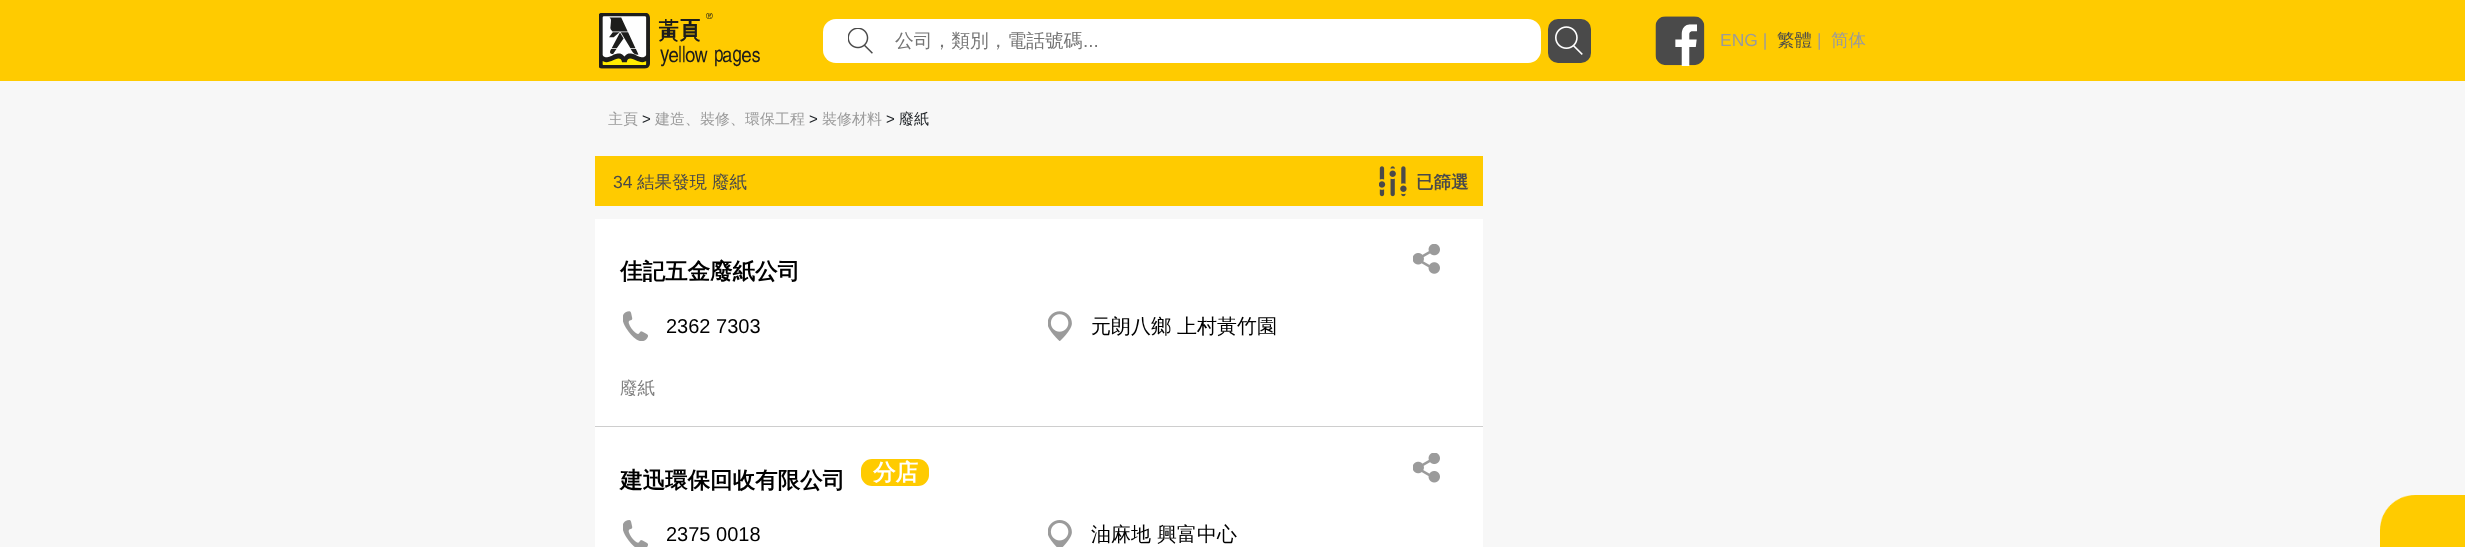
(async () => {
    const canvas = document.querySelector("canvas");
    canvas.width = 2465;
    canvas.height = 547;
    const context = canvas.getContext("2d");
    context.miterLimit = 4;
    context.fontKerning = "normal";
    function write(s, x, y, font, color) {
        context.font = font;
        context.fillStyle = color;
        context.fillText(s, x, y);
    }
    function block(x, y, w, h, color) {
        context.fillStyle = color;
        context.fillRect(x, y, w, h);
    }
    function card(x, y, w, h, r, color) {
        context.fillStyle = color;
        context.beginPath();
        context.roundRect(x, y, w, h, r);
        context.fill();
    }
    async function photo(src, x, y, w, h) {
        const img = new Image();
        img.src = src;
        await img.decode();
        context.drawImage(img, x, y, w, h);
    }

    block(0, 0, 2465, 547, "rgb(247, 247, 247)");
    block(0, 0, 2465, 81, "rgb(255, 203, 0)");
    await photo("media/1.png", 599, 13, 161, 56);
    card(823, 19, 718, 44, 13, "rgb(255, 255, 255)");
    await photo("media/2.png", 848, 28, 25, 26);
    write("公司，類別，電話號碼", 895, 47, "500 18.75px WenQuanYi Zen Hei", "rgb(117, 117, 117)");
    write("...", 1083, 47, "18.75px Liberation Sans", "rgb(117, 117, 117)");
    card(1548, 19, 43, 44, 10, "rgb(74, 74, 74)");
    await photo("media/3.png", 1555, 26, 28, 29);
    await photo("media/4.png", 1655, 16, 50, 50);
    write("ENG |", 1720, 46, "17.5px Liberation Sans", "rgb(155, 155, 155)");
    write("繁體", 1777, 46, "500 17.5px WenQuanYi Zen Hei", "rgb(74, 74, 74)");
    write("|", 1817, 46, "17.5px Liberation Sans", "rgb(155, 155, 155)");
    write("简体", 1831, 46, "500 17.5px WenQuanYi Zen Hei", "rgb(155, 155, 155)");
    write("主頁", 608, 124, "500 15px WenQuanYi Zen Hei", "rgb(155, 155, 155)");
    write(">", 642, 124, "15px Liberation Sans", "rgb(33, 37, 41)");
    write("建造、裝修、環保工程", 655, 124, "500 15px WenQuanYi Zen Hei", "rgb(155, 155, 155)");
    write(">", 809, 124, "15px Liberation Sans", "rgb(33, 37, 41)");
    write("裝修材料", 822, 124, "500 15px WenQuanYi Zen Hei", "rgb(155, 155, 155)");
    write(">", 886, 124, "15px Liberation Sans", "rgb(33, 37, 41)");
    write("廢紙", 899, 124, "500 15px WenQuanYi Zen Hei", "rgb(33, 37, 41)");
    block(595, 156, 888, 50, "rgb(255, 203, 0)");
    write("34", 613, 188, "17.5px Liberation Sans", "rgb(74, 74, 74)");
    write("結果發現", 637, 188, "500 17.5px WenQuanYi Zen Hei", "rgb(74, 74, 74)");
    write("廢紙", 712, 188, "500 17.5px WenQuanYi Zen Hei", "rgb(74, 74, 74)");
    await photo("media/5.png", 1379, 166, 28, 31);
    write("已篩選", 1416, 188, "bold 17.5px WenQuanYi Zen Hei", "rgb(74, 74, 74)");
    block(595, 219, 888, 328, "rgb(255, 255, 255)");
    block(595, 426, 888, 1, "rgb(206, 206, 206)");
    write("佳記五金廢紙公司", 620, 279, "bold 22.5px WenQuanYi Zen Hei", "rgb(0, 0, 0)");
    await photo("media/6.png", 1413, 244, 27, 30);
    await photo("media/7.png", 623, 311, 25, 30);
    write("2362 7303", 666, 333, "20px Liberation Sans", "rgb(0, 0, 0)");
    await photo("media/8.png", 1048, 311, 24, 30);
    write("元朗八鄉 上村黃竹園", 1091, 333, "500 20px WenQuanYi Zen Hei", "rgb(0, 0, 0)");
    write("廢紙", 620, 394, "500 17.5px WenQuanYi Zen Hei", "rgb(128, 128, 128)");
    write("建迅環保回收有限公司", 620, 488, "bold 22.5px WenQuanYi Zen Hei", "rgb(0, 0, 0)");
    card(861, 459, 68, 27, 11, "rgb(255, 203, 0)");
    write("分店", 873, 480, "bold 22.5px WenQuanYi Zen Hei", "rgb(255, 255, 255)");
    await photo("media/9.png", 1413, 453, 27, 30);
    await photo("media/10.png", 623, 520, 25, 27);
    write("2375 0018", 666, 541, "20px Liberation Sans", "rgb(0, 0, 0)");
    await photo("media/11.png", 1048, 520, 24, 27);
    write("油麻地 興富中心", 1091, 541, "500 20px WenQuanYi Zen Hei", "rgb(0, 0, 0)");
    await photo("media/12.png", 2380, 495, 85, 52);
})();
